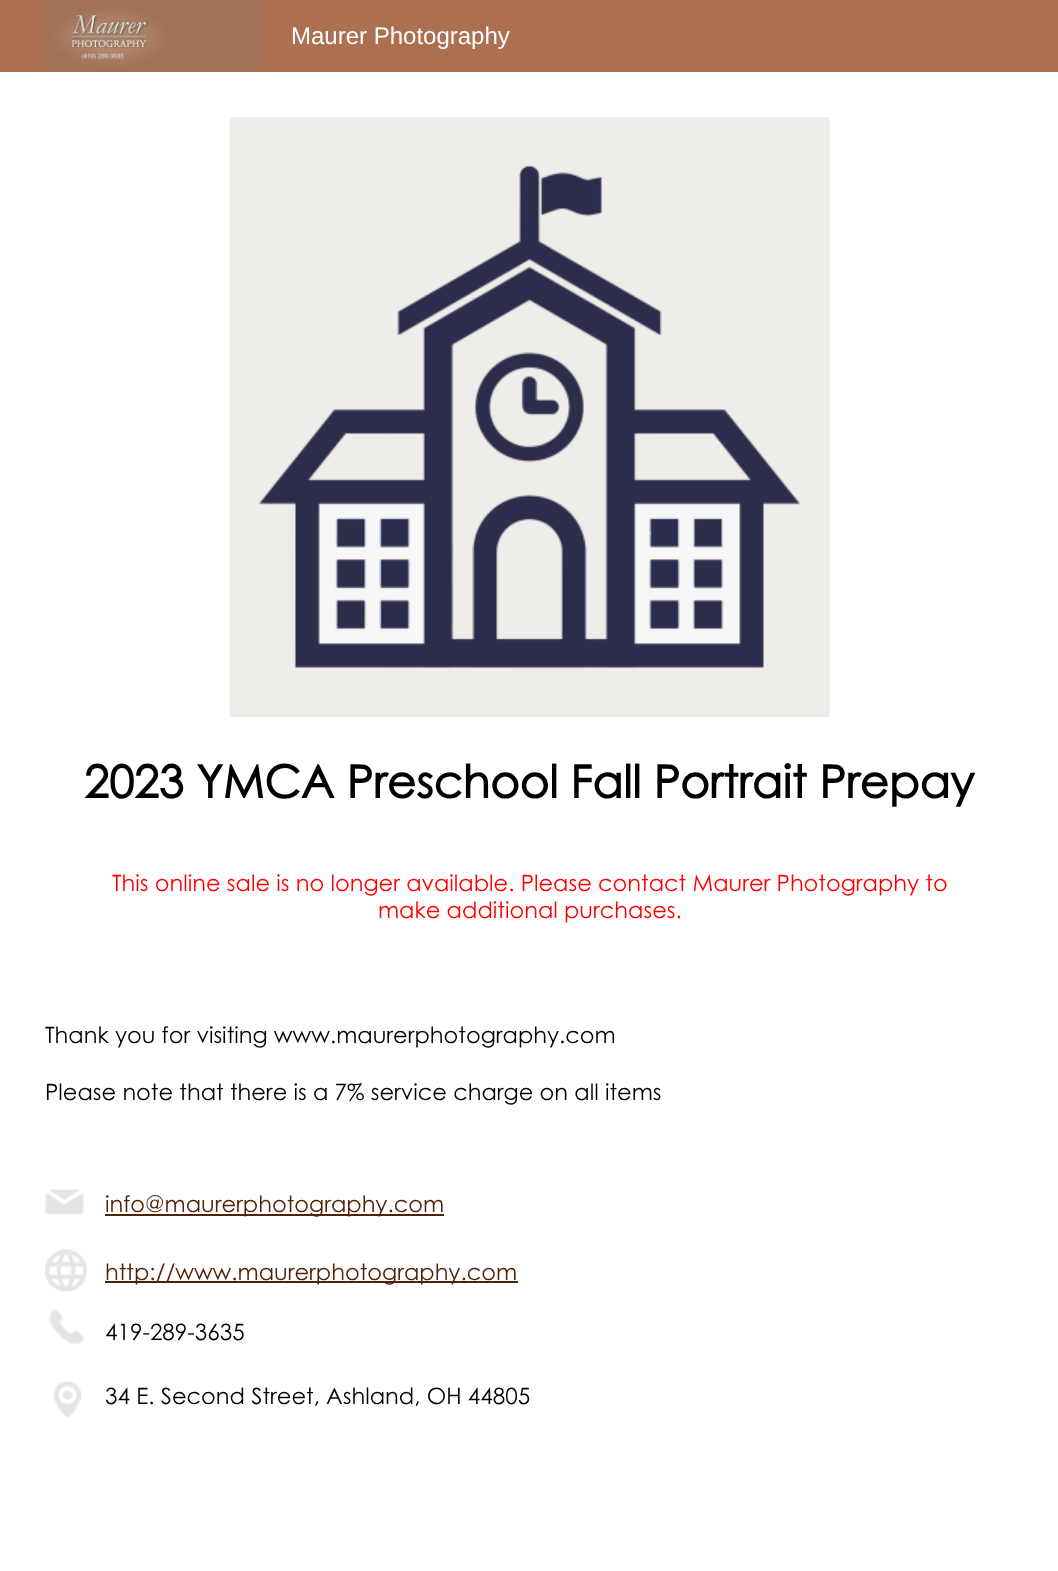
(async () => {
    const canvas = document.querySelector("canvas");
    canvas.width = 1058;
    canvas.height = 1571;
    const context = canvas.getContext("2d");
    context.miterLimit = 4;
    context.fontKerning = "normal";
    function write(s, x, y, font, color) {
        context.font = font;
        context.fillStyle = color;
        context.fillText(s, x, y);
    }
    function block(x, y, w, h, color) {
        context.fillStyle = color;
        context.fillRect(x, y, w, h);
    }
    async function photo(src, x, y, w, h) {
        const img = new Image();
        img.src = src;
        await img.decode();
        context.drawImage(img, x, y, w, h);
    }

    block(0, 0, 1058, 1571, "rgb(255, 255, 255)");
    block(0, 0, 1058, 72, "rgb(172, 112, 80)");
    await photo("media/1.png", 45, 0, 216, 72);
    write("Maurer Photography", 291, 44, "24px Liberation Sans", "rgb(255, 255, 255)");
    await photo("media/2.png", 229, 117, 601, 600);
    write("2023 YMCA Preschool Fall Portrait Prepay", 84, 798, "bold 45px Century Gothic", "rgb(0, 0, 0)");
    write("This online sale is no longer available. Please contact Maurer Photography to", 112, 891, "22.5px Century Gothic", "rgb(255, 0, 0)");
    write("make additional purchases.", 378, 918, "22.5px Century Gothic", "rgb(255, 0, 0)");
    write("Thank you for visiting www.maurerphotography.com", 45, 1043, "22.5px Century Gothic", "rgb(0, 0, 0)");
    write("Please note that there is a 7% service charge on all items", 45, 1100, "22.5px Century Gothic", "rgb(0, 0, 0)");
    await photo("media/3.png", 45, 1189, 39, 26);
    block(105, 1214, 339, 2, "rgb(82, 33, 7)");
    write("info@maurerphotography.com", 105, 1212, "22.5px Century Gothic", "rgb(82, 33, 7)");
    await photo("media/4.png", 45, 1249, 42, 43);
    block(105, 1281, 413, 2, "rgb(82, 33, 7)");
    write("http://www.maurerphotography.com", 105, 1280, "22.5px Century Gothic", "rgb(82, 33, 7)");
    await photo("media/5.png", 49, 1309, 35, 35);
    write("419-289-3635", 105, 1340, "22.5px Century Gothic", "rgb(0, 0, 0)");
    await photo("media/6.png", 54, 1381, 27, 37);
    write("34 E. Second Street, Ashland, OH 44805", 105, 1404, "22.5px Century Gothic", "rgb(0, 0, 0)");
})();
